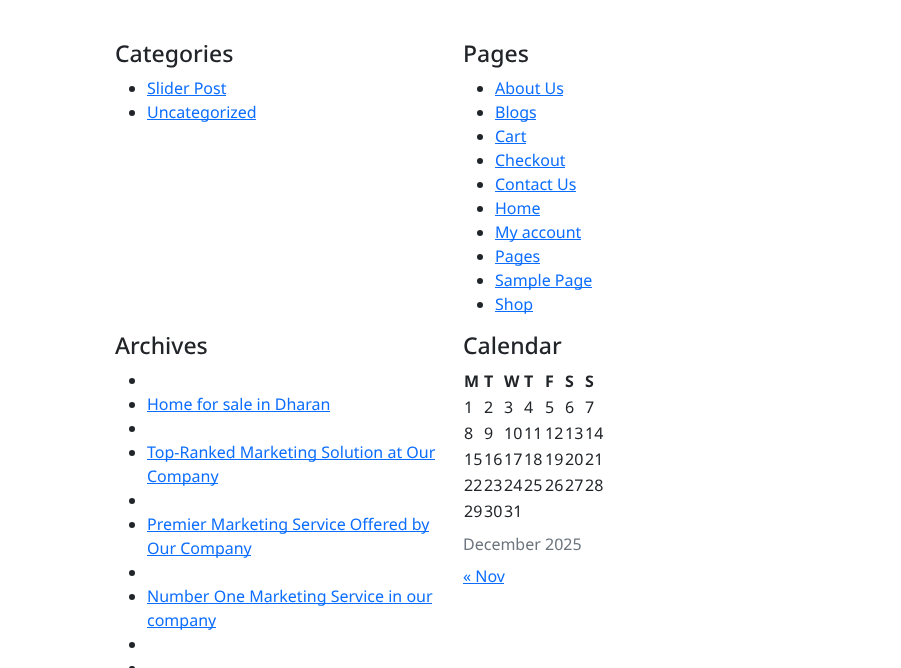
(async () => {
    const canvas = document.querySelector("canvas");
    canvas.width = 901;
    canvas.height = 668;
    const context = canvas.getContext("2d");
    context.miterLimit = 4;
    context.fontKerning = "normal";
    function write(s, x, y, font, color) {
        context.font = font;
        context.fillStyle = color;
        context.fillText(s, x, y);
    }
    function block(x, y, w, h, color) {
        context.fillStyle = color;
        context.fillRect(x, y, w, h);
    }
    function card(x, y, w, h, r, color) {
        context.fillStyle = color;
        context.beginPath();
        context.roundRect(x, y, w, h, r);
        context.fill();
    }

    block(0, 0, 901, 668, "rgb(255, 255, 255)");
    write("Categories", 115, 62, "500 23px Noto Sans", "rgb(33, 37, 41)");
    context.beginPath();
    context.arc(132, 89, 3, 0, Math.PI * 2);
    context.fill();
    write("Slider Post", 147, 94, "16px Noto Sans", "rgb(13, 110, 253)");
    block(147, 95, 79, 1, "rgb(13, 110, 253)");
    context.fillStyle = "rgb(33, 37, 41)";
    context.beginPath();
    context.arc(132, 113, 3, 0, Math.PI * 2);
    context.fill();
    block(147, 119, 109, 1, "rgb(13, 110, 253)");
    write("Uncategorized", 147, 118, "16px Noto Sans", "rgb(13, 110, 253)");
    write("Pages", 463, 62, "500 23px Noto Sans", "rgb(33, 37, 41)");
    context.beginPath();
    context.arc(480, 89, 3, 0, Math.PI * 2);
    context.fill();
    write("About Us", 495, 94, "16px Noto Sans", "rgb(13, 110, 253)");
    block(495, 95, 68, 1, "rgb(13, 110, 253)");
    context.fillStyle = "rgb(33, 37, 41)";
    context.beginPath();
    context.arc(480, 113, 3, 0, Math.PI * 2);
    context.fill();
    block(495, 119, 41, 1, "rgb(13, 110, 253)");
    write("Blogs", 495, 118, "16px Noto Sans", "rgb(13, 110, 253)");
    context.fillStyle = "rgb(33, 37, 41)";
    context.beginPath();
    context.arc(480, 137, 3, 0, Math.PI * 2);
    context.fill();
    write("Cart", 495, 142, "16px Noto Sans", "rgb(13, 110, 253)");
    block(495, 143, 31, 1, "rgb(13, 110, 253)");
    context.fillStyle = "rgb(33, 37, 41)";
    context.beginPath();
    context.arc(480, 161, 3, 0, Math.PI * 2);
    context.fill();
    write("Checkout", 495, 166, "16px Noto Sans", "rgb(13, 110, 253)");
    block(495, 167, 70, 1, "rgb(13, 110, 253)");
    context.fillStyle = "rgb(33, 37, 41)";
    context.beginPath();
    context.arc(480, 185, 3, 0, Math.PI * 2);
    context.fill();
    write("Contact Us", 495, 190, "16px Noto Sans", "rgb(13, 110, 253)");
    block(495, 191, 81, 1, "rgb(13, 110, 253)");
    context.fillStyle = "rgb(33, 37, 41)";
    context.beginPath();
    context.arc(480, 209, 3, 0, Math.PI * 2);
    context.fill();
    write("Home", 495, 214, "16px Noto Sans", "rgb(13, 110, 253)");
    block(495, 215, 45, 1, "rgb(13, 110, 253)");
    context.fillStyle = "rgb(33, 37, 41)";
    context.beginPath();
    context.arc(480, 233, 3, 0, Math.PI * 2);
    context.fill();
    block(495, 239, 86, 1, "rgb(13, 110, 253)");
    write("My account", 495, 238, "16px Noto Sans", "rgb(13, 110, 253)");
    context.fillStyle = "rgb(33, 37, 41)";
    context.beginPath();
    context.arc(480, 257, 3, 0, Math.PI * 2);
    context.fill();
    block(495, 263, 45, 1, "rgb(13, 110, 253)");
    write("Pages", 495, 262, "16px Noto Sans", "rgb(13, 110, 253)");
    context.fillStyle = "rgb(33, 37, 41)";
    context.beginPath();
    context.arc(480, 281, 3, 0, Math.PI * 2);
    context.fill();
    block(495, 287, 97, 1, "rgb(13, 110, 253)");
    write("Sample Page", 495, 286, "16px Noto Sans", "rgb(13, 110, 253)");
    context.fillStyle = "rgb(33, 37, 41)";
    context.beginPath();
    context.arc(480, 305, 3, 0, Math.PI * 2);
    context.fill();
    block(495, 311, 38, 1, "rgb(13, 110, 253)");
    write("Shop", 495, 310, "16px Noto Sans", "rgb(13, 110, 253)");
    write("Archives", 115, 354, "500 23px Noto Sans", "rgb(33, 37, 41)");
    context.beginPath();
    context.arc(132, 381, 3, 0, Math.PI * 2);
    context.fill();
    context.beginPath();
    context.arc(132, 405, 3, 0, Math.PI * 2);
    context.fill();
    write("Home for sale in Dharan", 147, 410, "16px Noto Sans", "rgb(13, 110, 253)");
    block(147, 411, 183, 1, "rgb(13, 110, 253)");
    context.fillStyle = "rgb(33, 37, 41)";
    context.beginPath();
    context.arc(132, 429, 3, 0, Math.PI * 2);
    context.fill();
    context.beginPath();
    context.arc(132, 453, 3, 0, Math.PI * 2);
    context.fill();
    block(147, 459, 288, 1, "rgb(13, 110, 253)");
    write("Top-Ranked Marketing Solution at Our", 147, 458, "16px Noto Sans", "rgb(13, 110, 253)");
    block(147, 483, 71, 1, "rgb(13, 110, 253)");
    write("Company", 147, 482, "16px Noto Sans", "rgb(13, 110, 253)");
    context.fillStyle = "rgb(33, 37, 41)";
    context.beginPath();
    context.arc(132, 501, 3, 0, Math.PI * 2);
    context.fill();
    context.beginPath();
    context.arc(132, 525, 3, 0, Math.PI * 2);
    context.fill();
    block(147, 531, 282, 1, "rgb(13, 110, 253)");
    write("Premier Marketing Service Offered by", 147, 530, "16px Noto Sans", "rgb(13, 110, 253)");
    block(147, 555, 104, 1, "rgb(13, 110, 253)");
    write("Our Company", 147, 554, "16px Noto Sans", "rgb(13, 110, 253)");
    context.fillStyle = "rgb(33, 37, 41)";
    context.beginPath();
    context.arc(132, 573, 3, 0, Math.PI * 2);
    context.fill();
    context.beginPath();
    context.arc(132, 597, 3, 0, Math.PI * 2);
    context.fill();
    block(147, 603, 285, 1, "rgb(13, 110, 253)");
    write("Number One Marketing Service in our", 147, 602, "16px Noto Sans", "rgb(13, 110, 253)");
    block(147, 627, 69, 1, "rgb(13, 110, 253)");
    write("company", 147, 626, "16px Noto Sans", "rgb(13, 110, 253)");
    context.fillStyle = "rgb(33, 37, 41)";
    context.beginPath();
    context.arc(132, 645, 3, 0, Math.PI * 2);
    context.fill();
    card(129, 666, 6, 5, 3, "rgb(33, 37, 41)");
    write("Calendar", 463, 354, "500 23px Noto Sans", "rgb(33, 37, 41)");
    write("M", 464, 387, "bold 16px Noto Sans", "rgb(33, 37, 41)");
    write("T", 484, 387, "bold 16px Noto Sans", "rgb(33, 37, 41)");
    write("W", 504, 387, "bold 16px Noto Sans", "rgb(33, 37, 41)");
    write("T", 524, 387, "bold 16px Noto Sans", "rgb(33, 37, 41)");
    write("F", 545, 387, "bold 16px Noto Sans", "rgb(33, 37, 41)");
    write("S", 565, 387, "bold 16px Noto Sans", "rgb(33, 37, 41)");
    write("S", 585, 387, "bold 16px Noto Sans", "rgb(33, 37, 41)");
    write("1", 464, 413, "16px Noto Sans", "rgb(33, 37, 41)");
    write("2", 484, 413, "16px Noto Sans", "rgb(33, 37, 41)");
    write("3", 504, 413, "16px Noto Sans", "rgb(33, 37, 41)");
    write("4", 524, 413, "16px Noto Sans", "rgb(33, 37, 41)");
    write("5", 545, 413, "16px Noto Sans", "rgb(33, 37, 41)");
    write("6", 565, 413, "16px Noto Sans", "rgb(33, 37, 41)");
    write("7", 585, 413, "16px Noto Sans", "rgb(33, 37, 41)");
    write("8", 464, 439, "16px Noto Sans", "rgb(33, 37, 41)");
    write("9", 484, 439, "16px Noto Sans", "rgb(33, 37, 41)");
    write("10", 504, 439, "16px Noto Sans", "rgb(33, 37, 41)");
    write("11", 524, 439, "16px Noto Sans", "rgb(33, 37, 41)");
    write("12", 545, 439, "16px Noto Sans", "rgb(33, 37, 41)");
    write("13", 565, 439, "16px Noto Sans", "rgb(33, 37, 41)");
    write("14", 585, 439, "16px Noto Sans", "rgb(33, 37, 41)");
    write("15", 464, 465, "16px Noto Sans", "rgb(33, 37, 41)");
    write("16", 484, 465, "16px Noto Sans", "rgb(33, 37, 41)");
    write("17", 504, 465, "16px Noto Sans", "rgb(33, 37, 41)");
    write("18", 524, 465, "16px Noto Sans", "rgb(33, 37, 41)");
    write("19", 545, 465, "16px Noto Sans", "rgb(33, 37, 41)");
    write("20", 565, 465, "16px Noto Sans", "rgb(33, 37, 41)");
    write("21", 585, 465, "16px Noto Sans", "rgb(33, 37, 41)");
    write("22", 464, 491, "16px Noto Sans", "rgb(33, 37, 41)");
    write("23", 484, 491, "16px Noto Sans", "rgb(33, 37, 41)");
    write("24", 504, 491, "16px Noto Sans", "rgb(33, 37, 41)");
    write("25", 524, 491, "16px Noto Sans", "rgb(33, 37, 41)");
    write("26", 545, 491, "16px Noto Sans", "rgb(33, 37, 41)");
    write("27", 565, 491, "16px Noto Sans", "rgb(33, 37, 41)");
    write("28", 585, 491, "16px Noto Sans", "rgb(33, 37, 41)");
    write("29", 464, 517, "16px Noto Sans", "rgb(33, 37, 41)");
    write("30", 484, 517, "16px Noto Sans", "rgb(33, 37, 41)");
    write("31", 504, 517, "16px Noto Sans", "rgb(33, 37, 41)");
    write("December 2025", 463, 550, "16px Noto Sans", "rgb(108, 117, 125)");
    write("« Nov", 463, 582, "16px Noto Sans", "rgb(13, 110, 253)");
    block(463, 583, 41, 1, "rgb(13, 110, 253)");
})();
